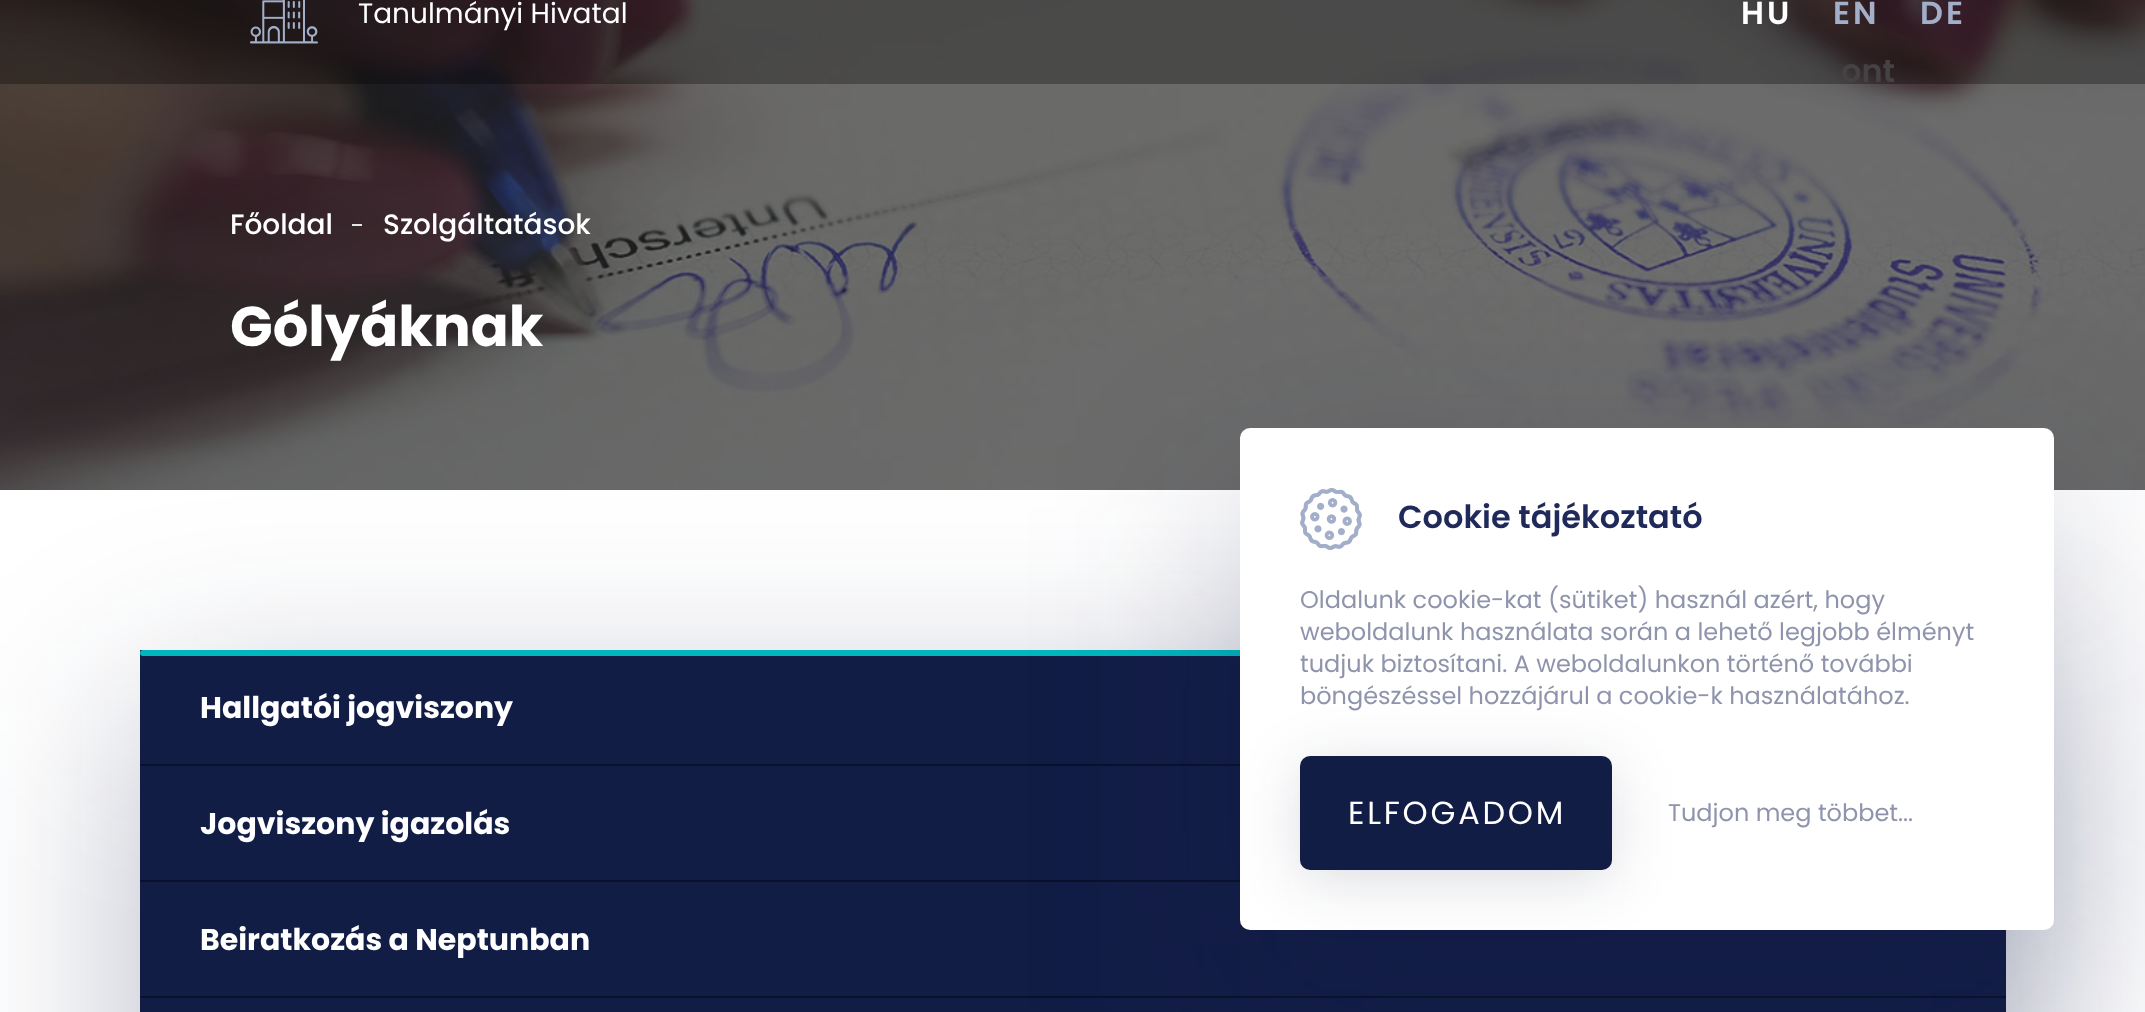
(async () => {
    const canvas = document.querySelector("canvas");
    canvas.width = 2145;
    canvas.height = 1012;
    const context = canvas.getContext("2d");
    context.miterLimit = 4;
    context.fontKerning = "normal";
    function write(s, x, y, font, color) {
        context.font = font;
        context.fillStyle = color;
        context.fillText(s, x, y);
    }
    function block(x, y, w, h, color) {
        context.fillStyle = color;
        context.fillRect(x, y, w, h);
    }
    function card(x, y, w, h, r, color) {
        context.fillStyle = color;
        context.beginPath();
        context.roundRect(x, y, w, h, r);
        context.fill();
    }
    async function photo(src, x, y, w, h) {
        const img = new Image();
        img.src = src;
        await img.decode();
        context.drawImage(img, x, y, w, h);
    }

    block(0, 0, 2145, 1012, "rgb(255, 255, 255)");
    block(0, 0, 2145, 490, "rgb(45, 45, 45)");
    await photo("media/2.png", 0, 0, 2145, 490);
    write("ont", 1841, 82, "600 32px Poppins", "rgb(98, 95, 96)");
    block(0, 0, 2145, 84, "rgba(0, 0, 0, 0.3)");
    await photo("media/1.png", 250, 0, 68, 44);
    write("Tanulmányi Hivatal", 358, 23, "28px Poppins", "rgb(255, 255, 255)");
    context.letterSpacing = "3px";
    write("HU", 1741, 24, "600 32px Poppins", "rgb(255, 255, 255)");
    write("EN", 1833, 24, "600 32px Poppins", "rgb(163, 174, 201)");
    write("DE", 1920, 24, "600 32px Poppins", "rgb(163, 174, 201)");
    context.letterSpacing = "0px";
    write("Főoldal", 230, 234, "500 28px Poppins", "rgb(255, 255, 255)");
    block(352, 224, 10, 2, "rgb(230, 230, 230)");
    write("Szolgáltatások", 383, 234, "500 28px Poppins", "rgb(255, 255, 255)");
    write("Gólyáknak", 230, 346, "bold 56px Poppins", "rgb(255, 255, 255)");
    context.fillStyle = "rgba(18, 29, 70, 0.3)";
    context.filter = "blur(99px)";
    context.beginPath();
    context.rect(140, 710, 1866, 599);
    context.fill();
    context.filter = "none";
    block(140, 650, 1100, 114, "rgb(18, 29, 70)");
    card(140, 650, 1866, 6, 3, "rgb(0, 183, 189)");
    block(140, 764, 1100, 2, "rgb(10, 17, 42)");
    write("Hallgatói jogviszony", 200, 718, "bold 30px Poppins", "rgb(255, 255, 255)");
    block(140, 766, 1100, 114, "rgb(18, 29, 70)");
    block(140, 880, 1100, 2, "rgb(10, 17, 42)");
    write("Jogviszony igazolás", 200, 834, "bold 30px Poppins", "rgb(255, 255, 255)");
    block(140, 882, 1866, 114, "rgb(18, 29, 70)");
    block(140, 996, 1866, 2, "rgb(10, 17, 42)");
    write("Beiratkozás a Neptunban", 200, 950, "bold 30px Poppins", "rgb(255, 255, 255)");
    block(140, 998, 1866, 14, "rgb(18, 29, 70)");
    context.fillStyle = "rgba(18, 29, 70, 0.25)";
    context.filter = "blur(99px)";
    context.beginPath();
    context.roundRect(1240, 508, 814, 502, 10);
    context.fill();
    context.filter = "none";
    card(1240, 428, 814, 502, 10, "rgb(255, 255, 255)");
    await photo("media/3.png", 1300, 488, 62, 62);
    write("Cookie tájékoztató", 1398, 528, "600 32px Poppins", "rgb(31, 41, 90)");
    write("Oldalunk cookie-kat (sütiket) használ azért, hogy", 1300, 608, "24px Poppins", "rgb(143, 148, 172)");
    write("weboldalunk használata során a lehető legjobb élményt", 1300, 640, "24px Poppins", "rgb(143, 148, 172)");
    write("tudjuk biztosítani. A weboldalunkon történő további", 1300, 672, "24px Poppins", "rgb(143, 148, 172)");
    write("böngészéssel hozzájárul a cookie-k használatához.", 1300, 704, "24px Poppins", "rgb(143, 148, 172)");
    context.fillStyle = "rgba(18, 29, 70, 0.15)";
    context.filter = "blur(30px)";
    context.beginPath();
    context.roundRect(1300, 766, 312, 114, 10);
    context.fill();
    context.filter = "none";
    card(1300, 756, 312, 114, 10, "rgb(18, 29, 70)");
    context.letterSpacing = "2.75px";
    write("ELFOGADOM", 1348, 824, "32px Poppins", "rgb(255, 255, 255)");
    context.letterSpacing = "0px";
    write("Tudjon meg többet...", 1668, 821, "24px Poppins", "rgb(143, 148, 172)");
})();
